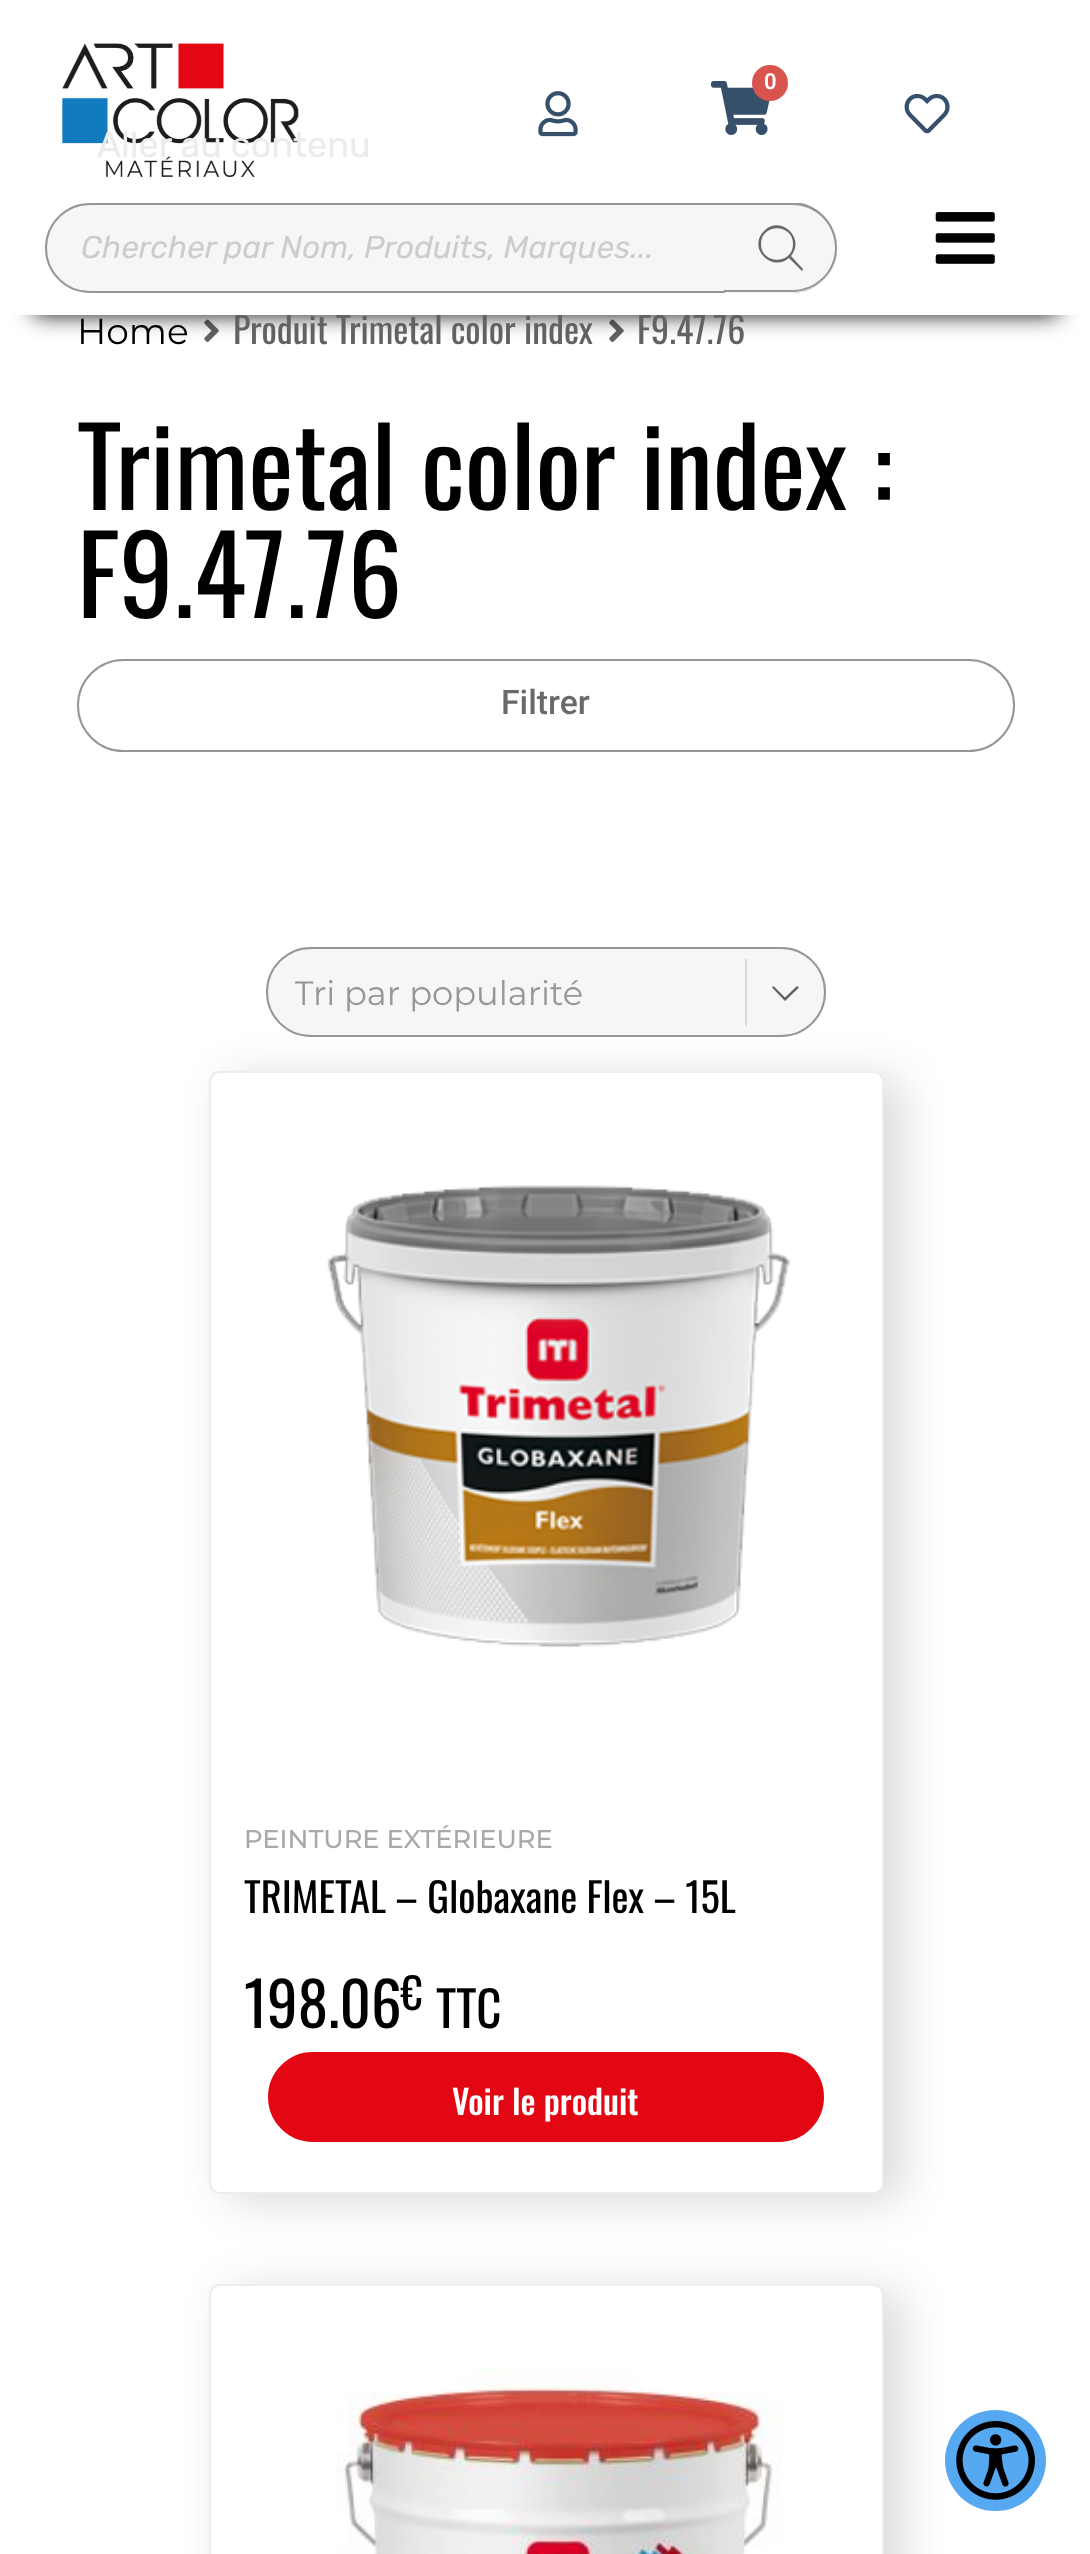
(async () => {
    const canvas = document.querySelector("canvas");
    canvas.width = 1090;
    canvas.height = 2554;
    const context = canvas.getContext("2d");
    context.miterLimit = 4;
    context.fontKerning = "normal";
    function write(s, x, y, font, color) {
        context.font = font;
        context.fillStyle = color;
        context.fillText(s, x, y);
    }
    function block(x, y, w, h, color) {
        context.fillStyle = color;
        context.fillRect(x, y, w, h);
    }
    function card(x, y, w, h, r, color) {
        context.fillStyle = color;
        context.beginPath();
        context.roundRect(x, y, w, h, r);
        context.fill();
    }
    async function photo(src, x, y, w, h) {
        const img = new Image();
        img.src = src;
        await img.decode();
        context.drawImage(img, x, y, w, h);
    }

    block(0, 0, 1090, 2554, "rgb(255, 255, 255)");
    await photo("media/7.png", 204, 319, 15, 23);
    await photo("media/7.png", 609, 319, 15, 23);
    context.fillStyle = "rgb(17, 17, 17)";
    context.filter = "blur(11px)";
    context.beginPath();
    context.rect(34, 248, 1024, 67);
    context.fill();
    context.filter = "none";
    write("Produit Trimetal color index", 233, 344, "36px Oswald", "rgb(98, 98, 98)");
    write("F9.47.76", 637, 344, "36px Oswald", "rgb(98, 98, 98)");
    block(9, 223, 1074, 92, "rgb(255, 255, 255)");
    context.fillStyle = "rgb(246, 246, 246)";
    context.beginPath();
    context.roundRect(46, 204, 790, 88, 44);
    context.fill();
    context.strokeStyle = "rgb(150, 150, 150)";
    context.lineWidth = 2;
    context.stroke();
    context.beginPath();
    context.roundRect(725, 203, 112, 90, [0, 45, 45, 0]);
    context.fill();
    context.fillStyle = "rgb(150, 150, 150)";
    context.beginPath();
    context.moveTo(724, 202);
    context.lineTo(792, 202);
    context.bezierCurveTo(817, 202, 837, 223, 837, 248);
    context.bezierCurveTo(837, 272, 817, 292, 792, 292);
    context.lineTo(724, 292);
    context.closePath();
    context.moveTo(724, 205);
    context.lineTo(792, 205);
    context.bezierCurveTo(816, 205, 835, 224, 835, 248);
    context.bezierCurveTo(835, 271, 816, 290, 792, 290);
    context.lineTo(724, 290);
    context.closePath();
    context.fill("evenodd");
    block(724, 202, 77, 1, "rgb(255, 255, 255)");
    await photo("media/1.png", 62, 43, 237, 134);
    await photo("media/2.png", 711, 81, 59, 54);
    context.fillStyle = "rgb(217, 83, 79)";
    context.beginPath();
    context.arc(770, 83, 18, 0, Math.PI * 2);
    context.fill();
    write("0", 764, 89, "600 22px Roboto", "rgb(255, 255, 255)");
    await photo("media/3.png", 538, 91, 40, 46);
    await photo("media/4.png", 904, 94, 46, 40);
    write("Chercher par Nom, Produits, Marques...", 81, 258, "italic 31.5px Rubik", "rgb(204, 204, 204)");
    context.fillStyle = "rgb(105, 105, 105)";
    context.beginPath();
    context.moveTo(803, 269);
    context.lineTo(791, 256);
    context.bezierCurveTo(806, 239, 781, 214, 764, 231);
    context.bezierCurveTo(747, 248, 772, 273, 789, 258);
    context.lineTo(802, 271);
    context.closePath();
    context.moveTo(761, 244);
    context.bezierCurveTo(761, 223, 793, 223, 793, 244);
    context.bezierCurveTo(793, 265, 761, 265, 761, 244);
    context.closePath();
    context.fill();
    await photo("media/5.png", 935, 212, 60, 52);
    write("Aller au contenu", 97, 157, "36px Rubik", "rgb(234, 235, 236)");
    context.fillStyle = "rgba(0, 0, 0, 0.15)";
    context.filter = "blur(22.5px)";
    context.beginPath();
    context.roundRect(227, 2291, 675, 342, 11);
    context.fill();
    context.filter = "none";
    context.fillStyle = "rgb(86, 168, 241)";
    context.beginPath();
    context.arc(995.5, 2460.5, 50.5, 0, Math.PI * 2);
    context.fill();
    await photo("media/6.png", 956, 2421, 79, 79);
    write("Home", 77, 344, "36px Montserrat", "rgb(0, 0, 0)");
    write("Trimetal color index :", 77, 510, "108px Oswald", "rgb(0, 0, 0)");
    write("F9.47.76", 77, 618, "108px Oswald", "rgb(0, 0, 0)");
    context.beginPath();
    context.roundRect(78, 660, 936, 91, 45.5);
    context.stroke();
    write("Filtrer", 501, 714, "500 33.75px Roboto", "rgb(105, 105, 105)");
    context.fillStyle = "rgba(0, 0, 0, 0.15)";
    context.filter = "blur(22.5px)";
    context.beginPath();
    context.roundRect(227, 1078, 675, 1123, 11);
    context.fill();
    context.filter = "none";
    card(266, 947, 560, 90, 45, "rgb(246, 246, 246)");
    block(745, 959, 2, 67, "rgb(219, 219, 219)");
    context.fillStyle = "rgb(98, 98, 98)";
    context.beginPath();
    context.moveTo(772, 987.5);
    context.lineTo(785, 1001);
    context.lineTo(799, 987.5);
    context.lineTo(797, 986);
    context.lineTo(785, 997.5);
    context.lineTo(773.5, 986);
    context.closePath();
    context.fill();
    context.beginPath();
    context.roundRect(267, 948, 558, 88, 44);
    context.stroke();
    context.save();
    context.beginPath();
    context.rect(295, 950, 439, 90);
    context.clip();
    write("Tri par popularité", 294, 1005, "33.75px Montserrat", "rgb(150, 150, 150)");
    context.restore();
    context.fillStyle = "rgb(255, 255, 255)";
    context.beginPath();
    context.roundRect(210, 1072, 673, 1121, 10);
    context.fill();
    context.strokeStyle = "rgb(236, 237, 240)";
    context.stroke();
    await photo("media/8.png", 327, 1185, 464, 463);
    write("PEINTURE EXTÉRIEURE", 244, 1848, "500 25.75px Montserrat", "rgb(169, 169, 169)");
    write("TRIMETAL – Globaxane Flex – 15L", 244, 1913, "40.5px Oswald", "rgb(0, 0, 0)");
    write("198.06", 244, 2028, "61px Oswald", "rgb(0, 0, 0)");
    write("€", 401, 2010, "43px Oswald", "rgb(0, 0, 0)");
    write("TTC", 436, 2028, "49px Oswald", "rgb(0, 0, 0)");
    context.fillStyle = "rgb(227, 6, 19)";
    context.beginPath();
    context.roundRect(269, 2053, 554, 88, 44);
    context.fill();
    context.strokeStyle = "rgb(227, 6, 19)";
    context.stroke();
    write("Voir le produit", 452, 2115, "500 33.75px Oswald", "rgb(255, 255, 255)");
    context.beginPath();
    context.roundRect(210, 2285, 673, 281, 10);
    context.fill();
    context.strokeStyle = "rgb(236, 237, 240)";
    context.stroke();
    await photo("media/9.png", 336, 2367, 446, 187);
})();
